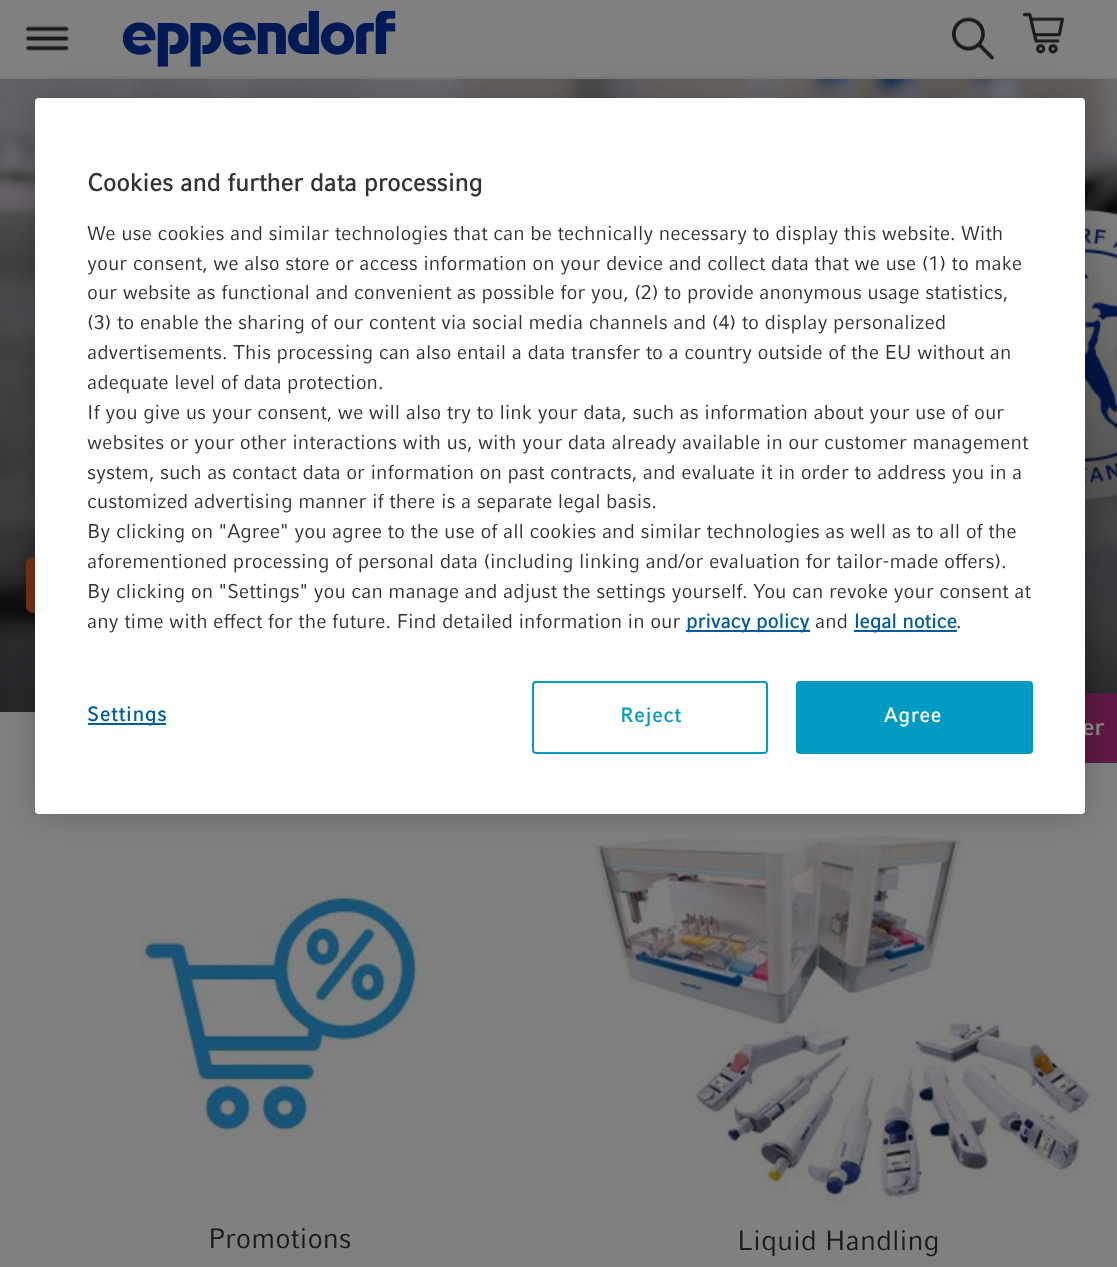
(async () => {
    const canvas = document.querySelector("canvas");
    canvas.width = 1117;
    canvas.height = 1267;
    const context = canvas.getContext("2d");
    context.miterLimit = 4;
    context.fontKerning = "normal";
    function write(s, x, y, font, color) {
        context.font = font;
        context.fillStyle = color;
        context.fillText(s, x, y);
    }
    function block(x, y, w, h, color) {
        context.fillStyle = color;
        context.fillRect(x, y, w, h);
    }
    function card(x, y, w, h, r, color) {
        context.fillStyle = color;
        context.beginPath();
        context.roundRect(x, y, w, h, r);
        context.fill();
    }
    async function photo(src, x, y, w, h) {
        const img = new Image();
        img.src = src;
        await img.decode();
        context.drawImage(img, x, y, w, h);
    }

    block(0, 0, 1117, 1267, "rgb(128, 128, 128)");
    block(0, 77, 1117, 2, "rgb(121, 121, 121)");
    await photo("media/1.png", 26, 26, 43, 25);
    await photo("media/2.png", 123, 11, 273, 56);
    await photo("media/3.png", 952, 17, 42, 43);
    await photo("media/4.png", 1022, 12, 42, 43);
    await photo("media/5.png", 0, 79, 1117, 634);
    card(26, 557, 196, 56, 7, "rgb(117, 50, 23)");
    block(1085, 693, 32, 70, "rgb(94, 25, 68)");
    await photo("media/7.png", 594, 835, 498, 370);
    context.fillStyle = "rgba(0, 0, 0, 0.2)";
    context.filter = "blur(16px)";
    context.beginPath();
    context.roundRect(35, 98, 1050, 716, 4);
    context.fill();
    context.filter = "none";
    write("er", 1082, 735, "bold 23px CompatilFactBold", "rgb(128, 128, 128)");
    card(35, 98, 1050, 716, 4, "rgb(255, 255, 255)");
    write("Cookies and further data processing", 87, 191, "bold 24.5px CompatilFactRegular", "rgb(51, 51, 51)");
    write("We use cookies and similar technologies that can be technically necessary to display this website. With", 87, 240, "19.9px CompatilFactRegular", "rgb(51, 51, 51)");
    write("your consent, we also store or access information on your device and collect data that we use (1) to make", 87, 270, "19.9px CompatilFactRegular", "rgb(51, 51, 51)");
    write("our website as functional and convenient as possible for you, (2) to provide anonymous usage statistics,", 87, 299, "19.9px CompatilFactRegular", "rgb(51, 51, 51)");
    write("(3) to enable the sharing of our content via social media channels and (4) to display personalized", 87, 329, "19.9px CompatilFactRegular", "rgb(51, 51, 51)");
    write("advertisements. This processing can also entail a data transfer to a country outside of the EU without an", 87, 359, "19.9px CompatilFactRegular", "rgb(51, 51, 51)");
    write("adequate level of data protection.", 87, 389, "19.9px CompatilFactRegular", "rgb(51, 51, 51)");
    write("If you give us your consent, we will also try to link your data, such as information about your use of our", 87, 419, "19.9px CompatilFactRegular", "rgb(51, 51, 51)");
    write("websites or your other interactions with us, with your data already available in our customer management", 87, 449, "19.9px CompatilFactRegular", "rgb(51, 51, 51)");
    write("system, such as contact data or information on past contracts, and evaluate it in order to address you in a", 87, 479, "19.9px CompatilFactRegular", "rgb(51, 51, 51)");
    write("customized advertising manner if there is a separate legal basis.", 87, 508, "19.9px CompatilFactRegular", "rgb(51, 51, 51)");
    write("By clicking on \"Agree\" you agree to the use of all cookies and similar technologies as well as to all of the", 87, 538, "19.9px CompatilFactRegular", "rgb(51, 51, 51)");
    write("aforementioned processing of personal data (including linking and/or evaluation for tailor-made offers).", 87, 568, "19.9px CompatilFactRegular", "rgb(51, 51, 51)");
    write("By clicking on \"Settings\" you can manage and adjust the settings yourself. You can revoke your consent at", 87, 598, "19.9px CompatilFactRegular", "rgb(51, 51, 51)");
    write("any time with effect for the future. Find detailed information in our", 87, 628, "19.9px CompatilFactRegular", "rgb(51, 51, 51)");
    block(686, 630, 124, 2, "rgb(0, 91, 159)");
    write("privacy policy", 686, 628, "bold 19.9px CompatilFactRegular", "rgb(0, 91, 159)");
    write("and", 815, 628, "19.9px CompatilFactRegular", "rgb(51, 51, 51)");
    block(854, 630, 103, 2, "rgb(0, 91, 159)");
    write("legal notice", 854, 628, "bold 19.9px CompatilFactRegular", "rgb(0, 91, 159)");
    write(".", 956, 628, "19.9px CompatilFactRegular", "rgb(51, 51, 51)");
    block(88, 723, 78, 2, "rgb(0, 91, 159)");
    context.letterSpacing = "1px";
    write("Settings", 87, 721, "bold 19.9px CompatilFactRegular", "rgb(0, 91, 159)");
    context.beginPath();
    context.roundRect(533, 682, 234, 71, 3);
    context.strokeStyle = "rgb(0, 155, 194)";
    context.lineWidth = 2;
    context.stroke();
    write("Reject", 620, 722, "bold 19.9px CompatilFactRegular", "rgb(0, 155, 194)");
    context.beginPath();
    context.roundRect(797, 682, 235, 71, 3);
    context.fill();
    context.stroke();
    write("Agree", 884, 722, "bold 19.9px CompatilFactRegular", "rgb(255, 255, 255)");
    await photo("media/6.png", 140, 888, 289, 250);
    context.letterSpacing = "0px";
    write("Promotions", 208, 1248, "28px CompatilFactRegular", "rgb(26, 26, 26)");
    write("Liquid Handling", 737, 1250, "28px CompatilFactRegular", "rgb(26, 26, 26)");
})();
